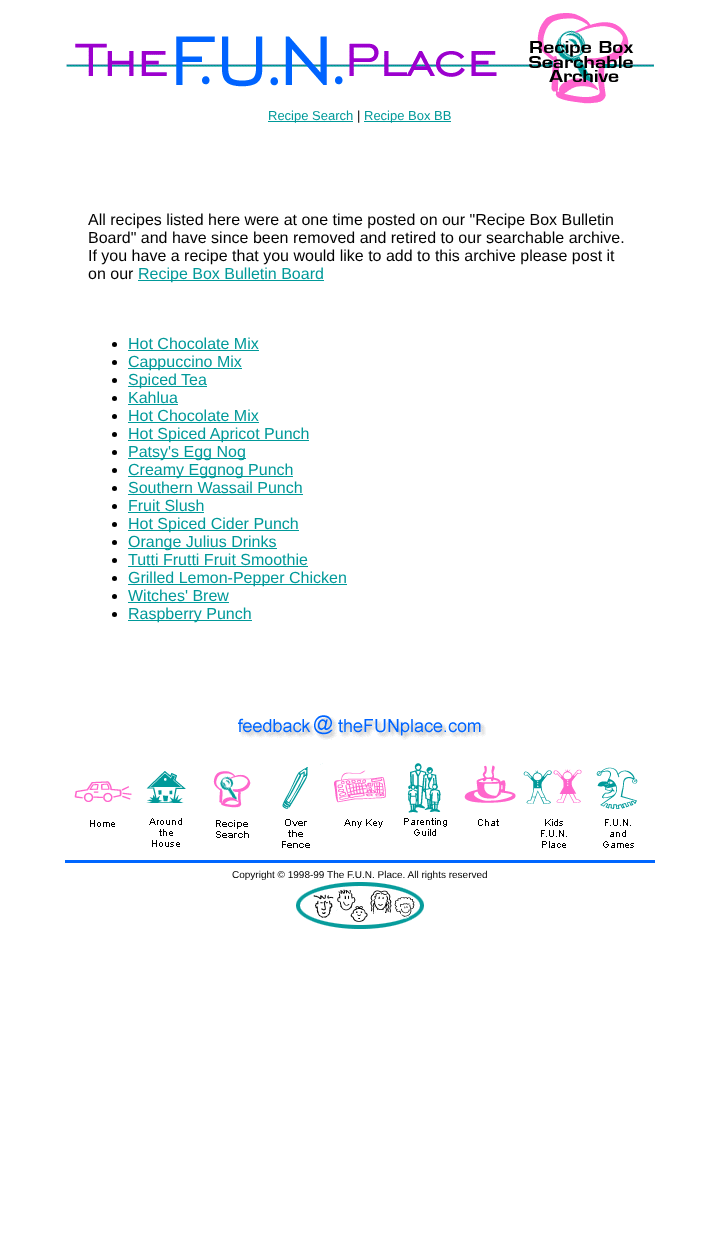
(async () => {
    const canvas = document.querySelector("canvas");
    canvas.width = 719;
    canvas.height = 1260;
    const context = canvas.getContext("2d");
    context.miterLimit = 4;
    context.fontKerning = "normal";
    function write(s, x, y, font, color) {
        context.font = font;
        context.fillStyle = color;
        context.fillText(s, x, y);
    }
    function block(x, y, w, h, color) {
        context.fillStyle = color;
        context.fillRect(x, y, w, h);
    }
    async function photo(src, x, y, w, h) {
        const img = new Image();
        img.src = src;
        await img.decode();
        context.drawImage(img, x, y, w, h);
    }

    block(0, 0, 719, 1260, "rgb(255, 255, 255)");
    await photo("media/1.png", 66, 13, 588, 91);
    block(268, 121, 85, 1, "rgb(0, 153, 153)");
    write("Recipe Search", 268, 120, "13px Liberation Sans", "rgb(0, 153, 153)");
    write("|", 357, 120, "13px Liberation Sans", "rgb(0, 0, 0)");
    block(364, 121, 87, 1, "rgb(0, 153, 153)");
    write("Recipe Box BB", 364, 120, "13px Liberation Sans", "rgb(0, 153, 153)");
    write("All recipes listed here were at one time posted on our \"Recipe Box Bulletin", 88, 225, "16px Liberation Sans", "rgb(0, 0, 0)");
    write("Board\" and have since been removed and retired to our searchable archive.", 88, 243, "16px Liberation Sans", "rgb(0, 0, 0)");
    write("If you have a recipe that you would like to add to this archive please post it", 88, 261, "16px Liberation Sans", "rgb(0, 0, 0)");
    write("on our", 88, 279, "16px Liberation Sans", "rgb(0, 0, 0)");
    block(138, 280, 186, 1, "rgb(0, 153, 153)");
    write("Recipe Box Bulletin Board", 138, 279, "16px Liberation Sans", "rgb(0, 153, 153)");
    context.fillStyle = "rgb(0, 0, 0)";
    context.beginPath();
    context.arc(114.5, 344.5, 2.5, 0, Math.PI * 2);
    context.fill();
    write("Hot Chocolate Mix", 128, 349, "16px Liberation Sans", "rgb(0, 153, 153)");
    block(128, 350, 131, 1, "rgb(0, 153, 153)");
    context.fillStyle = "rgb(0, 0, 0)";
    context.beginPath();
    context.arc(114.5, 362.5, 2.5, 0, Math.PI * 2);
    context.fill();
    block(128, 368, 114, 1, "rgb(0, 153, 153)");
    write("Cappuccino Mix", 128, 367, "16px Liberation Sans", "rgb(0, 153, 153)");
    context.fillStyle = "rgb(0, 0, 0)";
    context.beginPath();
    context.arc(114.5, 380.5, 2.5, 0, Math.PI * 2);
    context.fill();
    block(128, 386, 79, 1, "rgb(0, 153, 153)");
    write("Spiced Tea", 128, 385, "16px Liberation Sans", "rgb(0, 153, 153)");
    context.fillStyle = "rgb(0, 0, 0)";
    context.beginPath();
    context.arc(114.5, 398.5, 2.5, 0, Math.PI * 2);
    context.fill();
    write("Kahlua", 128, 403, "16px Liberation Sans", "rgb(0, 153, 153)");
    block(128, 404, 50, 1, "rgb(0, 153, 153)");
    context.fillStyle = "rgb(0, 0, 0)";
    context.beginPath();
    context.arc(114.5, 416.5, 2.5, 0, Math.PI * 2);
    context.fill();
    write("Hot Chocolate Mix", 128, 421, "16px Liberation Sans", "rgb(0, 153, 153)");
    block(128, 422, 131, 1, "rgb(0, 153, 153)");
    context.fillStyle = "rgb(0, 0, 0)";
    context.beginPath();
    context.arc(114.5, 434.5, 2.5, 0, Math.PI * 2);
    context.fill();
    block(128, 440, 181, 1, "rgb(0, 153, 153)");
    write("Hot Spiced Apricot Punch", 128, 439, "16px Liberation Sans", "rgb(0, 153, 153)");
    context.fillStyle = "rgb(0, 0, 0)";
    context.beginPath();
    context.arc(114.5, 452.5, 2.5, 0, Math.PI * 2);
    context.fill();
    block(128, 458, 118, 1, "rgb(0, 153, 153)");
    write("Patsy's Egg Nog", 128, 457, "16px Liberation Sans", "rgb(0, 153, 153)");
    context.fillStyle = "rgb(0, 0, 0)";
    context.beginPath();
    context.arc(114.5, 470.5, 2.5, 0, Math.PI * 2);
    context.fill();
    block(128, 476, 165, 1, "rgb(0, 153, 153)");
    write("Creamy Eggnog Punch", 128, 475, "16px Liberation Sans", "rgb(0, 153, 153)");
    context.fillStyle = "rgb(0, 0, 0)";
    context.beginPath();
    context.arc(114.5, 488.5, 2.5, 0, Math.PI * 2);
    context.fill();
    write("Southern Wassail Punch", 128, 493, "16px Liberation Sans", "rgb(0, 153, 153)");
    block(128, 494, 175, 1, "rgb(0, 153, 153)");
    context.fillStyle = "rgb(0, 0, 0)";
    context.beginPath();
    context.arc(114.5, 506.5, 2.5, 0, Math.PI * 2);
    context.fill();
    write("Fruit Slush", 128, 511, "16px Liberation Sans", "rgb(0, 153, 153)");
    block(128, 512, 76, 1, "rgb(0, 153, 153)");
    context.fillStyle = "rgb(0, 0, 0)";
    context.beginPath();
    context.arc(114.5, 524.5, 2.5, 0, Math.PI * 2);
    context.fill();
    block(128, 530, 171, 1, "rgb(0, 153, 153)");
    write("Hot Spiced Cider Punch", 128, 529, "16px Liberation Sans", "rgb(0, 153, 153)");
    context.fillStyle = "rgb(0, 0, 0)";
    context.beginPath();
    context.arc(114.5, 542.5, 2.5, 0, Math.PI * 2);
    context.fill();
    block(128, 548, 149, 1, "rgb(0, 153, 153)");
    write("Orange Julius Drinks", 128, 547, "16px Liberation Sans", "rgb(0, 153, 153)");
    context.fillStyle = "rgb(0, 0, 0)";
    context.beginPath();
    context.arc(114.5, 560.5, 2.5, 0, Math.PI * 2);
    context.fill();
    write("Tutti Frutti Fruit Smoothie", 128, 565, "16px Liberation Sans", "rgb(0, 153, 153)");
    block(128, 566, 180, 1, "rgb(0, 153, 153)");
    context.fillStyle = "rgb(0, 0, 0)";
    context.beginPath();
    context.arc(114.5, 578.5, 2.5, 0, Math.PI * 2);
    context.fill();
    block(128, 584, 219, 1, "rgb(0, 153, 153)");
    write("Grilled Lemon-Pepper Chicken", 128, 583, "16px Liberation Sans", "rgb(0, 153, 153)");
    context.fillStyle = "rgb(0, 0, 0)";
    context.beginPath();
    context.arc(114.5, 596.5, 2.5, 0, Math.PI * 2);
    context.fill();
    write("Witches' Brew", 128, 601, "16px Liberation Sans", "rgb(0, 153, 153)");
    block(128, 602, 101, 1, "rgb(0, 153, 153)");
    context.fillStyle = "rgb(0, 0, 0)";
    context.beginPath();
    context.arc(114.5, 614.5, 2.5, 0, Math.PI * 2);
    context.fill();
    block(128, 620, 124, 1, "rgb(0, 153, 153)");
    write("Raspberry Punch", 128, 619, "16px Liberation Sans", "rgb(0, 153, 153)");
    await photo("media/2.png", 238, 715, 248, 25);
    await photo("media/3.png", 74, 781, 58, 46);
    await photo("media/4.png", 146, 771, 40, 76);
    await photo("media/5.png", 213, 771, 38, 67);
    await photo("media/6.png", 282, 763, 41, 85);
    await photo("media/7.png", 334, 770, 52, 58);
    await photo("media/8.png", 404, 763, 43, 73);
    await photo("media/9.png", 464, 765, 52, 61);
    await photo("media/10.png", 523, 769, 59, 79);
    await photo("media/11.png", 596, 767, 42, 81);
    block(65, 860, 590, 3, "rgb(0, 102, 255)");
    write("Copyright © 1998-99 The F.U.N. Place. All rights reserved", 232, 878, "10px Liberation Sans", "rgb(0, 0, 0)");
    await photo("media/12.png", 296, 882, 128, 47);
})();
